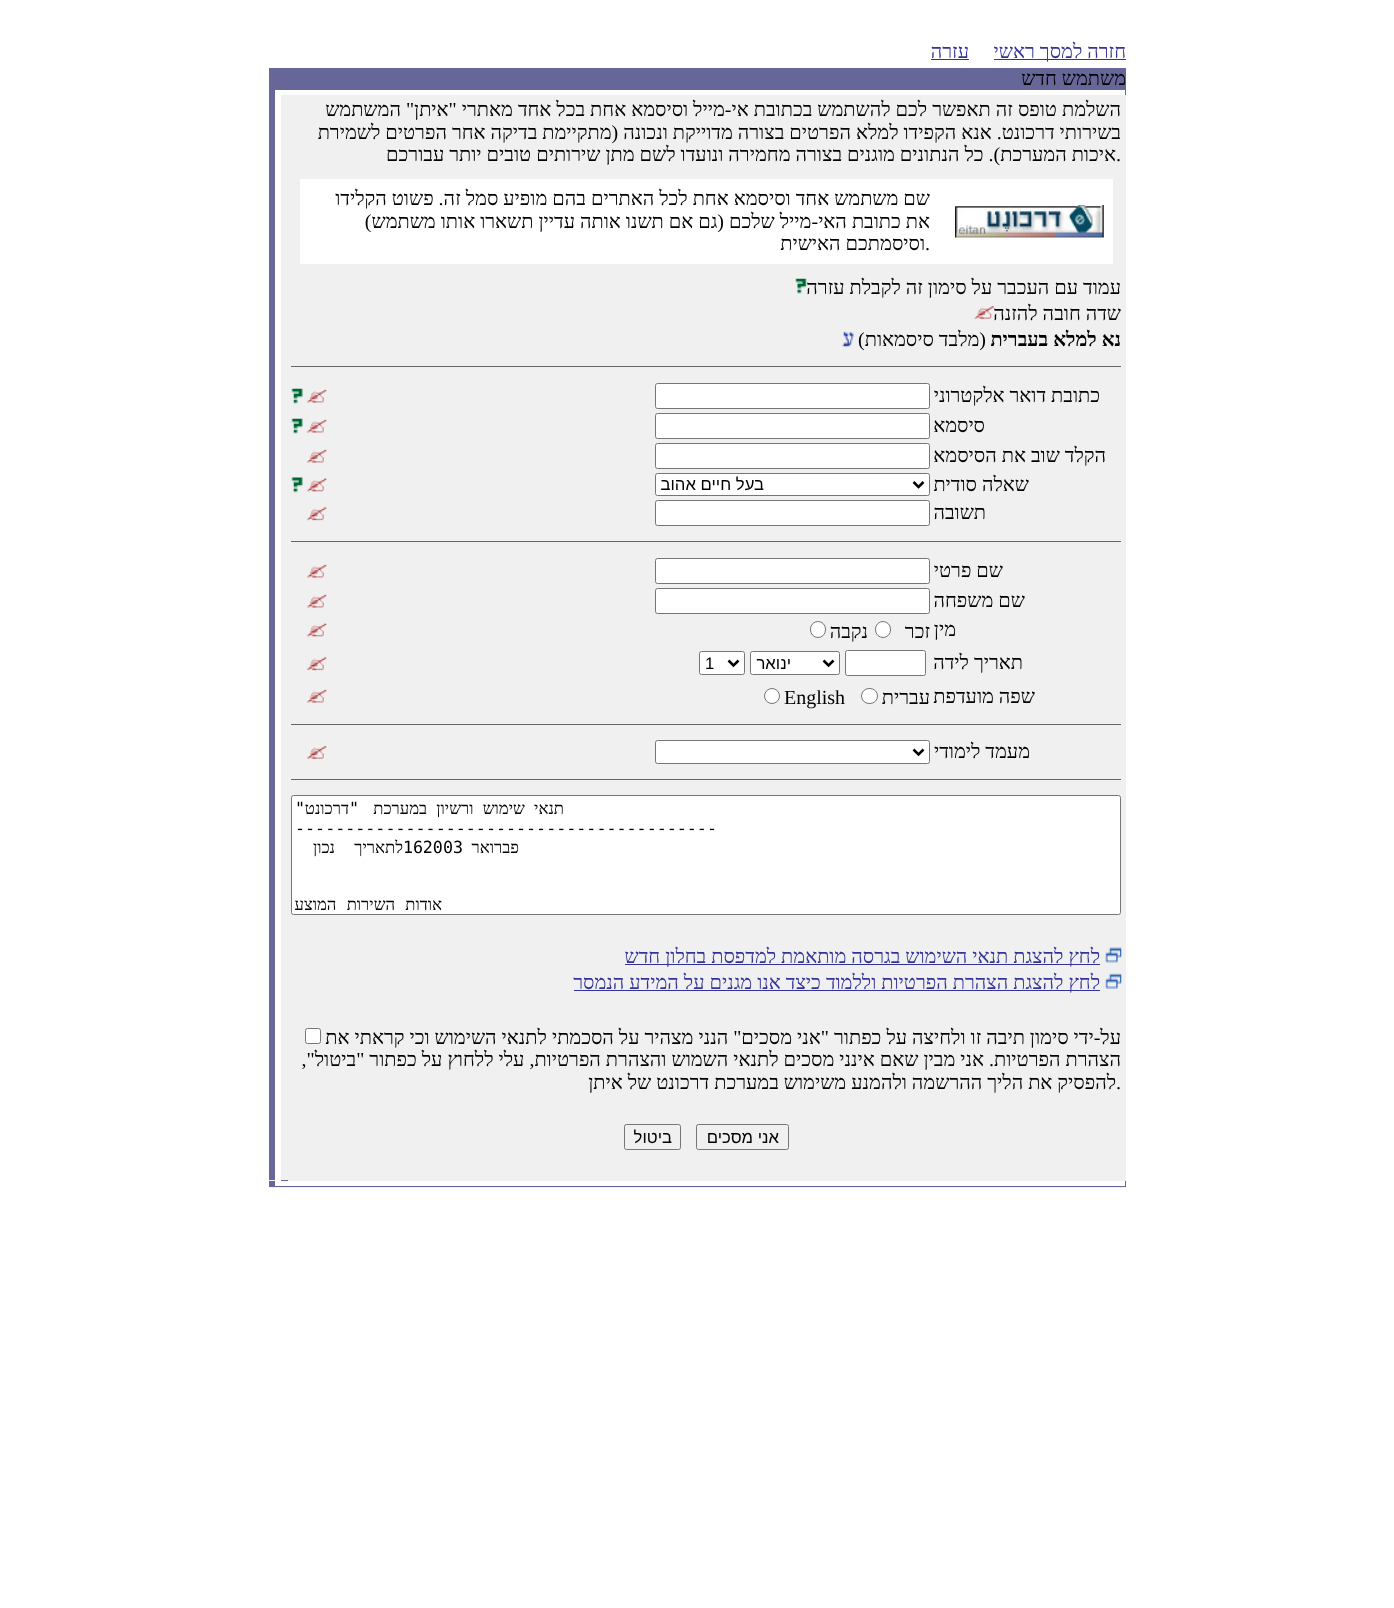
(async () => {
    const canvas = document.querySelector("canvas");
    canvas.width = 1394;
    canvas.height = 1608;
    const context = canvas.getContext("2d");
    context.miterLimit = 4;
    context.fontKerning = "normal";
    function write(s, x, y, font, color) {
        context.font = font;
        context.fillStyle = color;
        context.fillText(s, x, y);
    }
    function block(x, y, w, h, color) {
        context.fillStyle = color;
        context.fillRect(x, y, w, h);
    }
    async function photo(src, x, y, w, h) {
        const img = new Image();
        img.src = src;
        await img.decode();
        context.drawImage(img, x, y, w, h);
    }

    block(0, 0, 1394, 1608, "rgb(255, 255, 255)");
    block(994, 59, 132, 1, "rgb(51, 51, 153)");
    context.direction = "rtl";
    write("חזרה למסך ראשי", 1126, 58, "20px Liberation Serif", "rgb(51, 51, 153)");
    write("עזרה", 969, 58, "20px Liberation Serif", "rgb(51, 51, 153)");
    block(931, 59, 38, 1, "rgb(51, 51, 153)");
    block(269, 95, 857, 1093, "rgb(240, 240, 240)");
    block(269, 68, 857, 22, "rgb(102, 102, 153)");
    write("משתמש חדש", 1126, 85, "20px Liberation Serif", "rgb(0, 0, 0)");
    block(1125, 90, 1, 5, "rgb(102, 102, 153)");
    block(269, 90, 6, 1090, "rgb(102, 102, 153)");
    write("השלמת טופס זה תאפשר לכם להשתמש בכתובת אי-מייל וסיסמא אחת בכל אחד מאתרי \"איתן\" המשתמש", 1121, 116, "20px Liberation Serif", "rgb(0, 0, 0)");
    write("בשירותי דרכונט. אנא הקפידו למלא הפרטים בצורה מדוייקת ונכונה (מתקיימת בדיקה אחר הפרטים לשמירת", 1121, 139, "20px Liberation Serif", "rgb(0, 0, 0)");
    context.direction = "ltr";
    write(".", 1116, 161, "20px Liberation Serif", "rgb(0, 0, 0)");
    context.direction = "rtl";
    write("איכות המערכת). כל הנתונים מוגנים בצורה מחמירה ונועדו לשם מתן שירותים טובים יותר עבורכם", 1116, 161, "20px Liberation Serif", "rgb(0, 0, 0)");
    block(300, 179, 813, 85, "rgb(255, 255, 255)");
    await photo("media/1.png", 955, 205, 149, 33);
    write("שם משתמש אחד וסיסמא אחת לכל האתרים בהם מופיע סמל זה. פשוט הקלידו", 930, 205, "20px Liberation Serif", "rgb(0, 0, 0)");
    write("את כתובת האי-מייל שלכם (גם אם תשנו אותה עדיין תשארו אותו משתמש)", 930, 228, "20px Liberation Serif", "rgb(0, 0, 0)");
    context.direction = "ltr";
    write(".", 925, 250, "20px Liberation Serif", "rgb(0, 0, 0)");
    context.direction = "rtl";
    write("וסיסמתכם האישית", 925, 250, "20px Liberation Serif", "rgb(0, 0, 0)");
    write("עמוד עם העכבר על סימון זה לקבלת עזרה", 1121, 294, "20px Liberation Serif", "rgb(0, 0, 0)");
    await photo("media/2.png", 795, 278, 12, 16);
    write("שדה חובה להזנה", 1121, 320, "20px Liberation Serif", "rgb(0, 0, 0)");
    await photo("media/3.png", 974, 305, 20, 14);
    write("נא למלא בעברית", 1121, 346, "bold 20px Liberation Serif", "rgb(0, 0, 0)");
    write("(מלבד סיסמאות)", 986, 346, "20px Liberation Serif", "rgb(0, 0, 0)");
    await photo("media/4.png", 842, 331, 12, 16);
    block(291, 366, 830, 1, "rgb(102, 102, 102)");
    write("כתובת דואר אלקטרוני", 1100, 402, "20px Liberation Serif", "rgb(0, 0, 0)");
    context.fillStyle = "rgb(255, 255, 255)";
    context.beginPath();
    context.roundRect(655.5, 383.5, 274, 25, 2);
    context.fill();
    context.strokeStyle = "rgb(118, 118, 118)";
    context.stroke();
    await photo("media/5.png", 306, 389, 21, 14);
    await photo("media/6.png", 291, 388, 12, 16);
    write("סיסמא", 985, 432, "20px Liberation Serif", "rgb(0, 0, 0)");
    context.fillStyle = "rgb(255, 255, 255)";
    context.beginPath();
    context.roundRect(655.5, 413.5, 274, 25, 2);
    context.fill();
    context.stroke();
    await photo("media/5.png", 306, 419, 21, 14);
    await photo("media/6.png", 291, 418, 12, 16);
    write("הקלד שוב את הסיסמא", 1106, 462, "20px Liberation Serif", "rgb(0, 0, 0)");
    context.fillStyle = "rgb(255, 255, 255)";
    context.beginPath();
    context.roundRect(655.5, 443.5, 274, 25, 2);
    context.fill();
    context.stroke();
    await photo("media/5.png", 306, 449, 21, 14);
    write("שאלה סודית", 1029, 491, "20px Liberation Serif", "rgb(0, 0, 0)");
    context.fillStyle = "rgb(255, 255, 255)";
    context.beginPath();
    context.roundRect(655.5, 473.5, 274, 22, 2);
    context.fill();
    context.stroke();
    context.beginPath();
    context.moveTo(913.5, 482);
    context.lineTo(918.5, 487);
    context.lineTo(923.5, 482);
    context.strokeStyle = "rgb(0, 0, 0)";
    context.lineWidth = 2.5;
    context.stroke();
    write("בעל חיים אהוב", 764, 490, "16.7px Liberation Sans", "rgb(0, 0, 0)");
    await photo("media/7.png", 306, 477, 21, 15);
    await photo("media/8.png", 291, 477, 12, 16);
    write("תשובה", 986, 519, "20px Liberation Serif", "rgb(0, 0, 0)");
    context.fillStyle = "rgb(255, 255, 255)";
    context.beginPath();
    context.roundRect(655.5, 500.5, 274, 25, 2);
    context.fill();
    context.strokeStyle = "rgb(118, 118, 118)";
    context.lineWidth = 1;
    context.stroke();
    await photo("media/9.png", 306, 506, 21, 15);
    block(291, 541, 830, 1, "rgb(102, 102, 102)");
    write("שם פרטי", 1003, 577, "20px Liberation Serif", "rgb(0, 0, 0)");
    context.fillStyle = "rgb(255, 255, 255)";
    context.beginPath();
    context.roundRect(655.5, 558.5, 274, 25, 2);
    context.fill();
    context.stroke();
    await photo("media/5.png", 306, 564, 21, 14);
    write("שם משפחה", 1025, 607, "20px Liberation Serif", "rgb(0, 0, 0)");
    context.fillStyle = "rgb(255, 255, 255)";
    context.beginPath();
    context.roundRect(655.5, 588.5, 274, 25, 2);
    context.fill();
    context.stroke();
    await photo("media/5.png", 306, 594, 21, 14);
    write("מין", 956, 636, "20px Liberation Serif", "rgb(0, 0, 0)");
    write("זכר", 930, 638, "20px Liberation Serif", "rgb(0, 0, 0)");
    context.fillStyle = "rgb(255, 255, 255)";
    context.beginPath();
    context.roundRect(875.5, 621.5, 15, 16, 7.5);
    context.fill();
    context.stroke();
    write("נקבה", 868, 638, "20px Liberation Serif", "rgb(0, 0, 0)");
    context.fillStyle = "rgb(255, 255, 255)";
    context.beginPath();
    context.roundRect(810.5, 621.5, 15, 16, 7.5);
    context.fill();
    context.stroke();
    await photo("media/7.png", 306, 622, 21, 15);
    write("תאריך לידה", 1023, 669, "20px Liberation Serif", "rgb(0, 0, 0)");
    context.fillStyle = "rgb(255, 255, 255)";
    context.beginPath();
    context.roundRect(845.5, 650.5, 80, 25, 2);
    context.fill();
    context.stroke();
    context.beginPath();
    context.roundRect(750.5, 651.5, 89, 23, 2);
    context.fill();
    context.stroke();
    context.beginPath();
    context.moveTo(823.5, 660.5);
    context.lineTo(828.5, 665.5);
    context.lineTo(833.5, 660.5);
    context.strokeStyle = "rgb(0, 0, 0)";
    context.lineWidth = 2.5;
    context.stroke();
    write("ינואר", 791, 669, "16.7px Liberation Sans", "rgb(0, 0, 0)");
    context.fillStyle = "rgb(255, 255, 255)";
    context.beginPath();
    context.roundRect(699.5, 651.5, 45, 23, 2);
    context.fill();
    context.strokeStyle = "rgb(118, 118, 118)";
    context.lineWidth = 1;
    context.stroke();
    context.beginPath();
    context.moveTo(728.5, 660.5);
    context.lineTo(733.5, 665.5);
    context.lineTo(738.5, 660.5);
    context.strokeStyle = "rgb(0, 0, 0)";
    context.lineWidth = 2.5;
    context.stroke();
    context.direction = "ltr";
    write("1", 705, 669, "16.7px Liberation Sans", "rgb(0, 0, 0)");
    await photo("media/9.png", 306, 656, 21, 15);
    context.direction = "rtl";
    write("שפה מועדפת", 1035, 703, "20px Liberation Serif", "rgb(0, 0, 0)");
    write("עברית", 930, 704, "20px Liberation Serif", "rgb(0, 0, 0)");
    context.fillStyle = "rgb(255, 255, 255)";
    context.beginPath();
    context.roundRect(861.5, 688.5, 16, 15, 7.5);
    context.fill();
    context.strokeStyle = "rgb(118, 118, 118)";
    context.lineWidth = 1;
    context.stroke();
    context.direction = "ltr";
    write("English", 784, 704, "20px Liberation Serif", "rgb(0, 0, 0)");
    context.fillStyle = "rgb(255, 255, 255)";
    context.beginPath();
    context.arc(772, 696, 7.5, 0, Math.PI * 2);
    context.fill();
    context.stroke();
    await photo("media/5.png", 306, 689, 21, 14);
    block(291, 724, 830, 1, "rgb(102, 102, 102)");
    context.direction = "rtl";
    write("מעמד לימודי", 1030, 758, "20px Liberation Serif", "rgb(0, 0, 0)");
    context.fillStyle = "rgb(255, 255, 255)";
    context.beginPath();
    context.roundRect(655.5, 740.5, 274, 23, 2);
    context.fill();
    context.stroke();
    context.beginPath();
    context.moveTo(913.5, 749.5);
    context.lineTo(918.5, 754.5);
    context.lineTo(923.5, 749.5);
    context.strokeStyle = "rgb(0, 0, 0)";
    context.lineWidth = 2.5;
    context.stroke();
    await photo("media/10.png", 306, 745, 21, 14);
    block(291, 779, 830, 1, "rgb(102, 102, 102)");
    context.fillStyle = "rgb(255, 255, 255)";
    context.beginPath();
    context.roundRect(291.5, 795.5, 829, 119, 2);
    context.fill();
    context.strokeStyle = "rgb(118, 118, 118)";
    context.lineWidth = 1;
    context.stroke();
    context.wordSpacing = "5px";
    write("תנאי שימוש ורשיון במערכת", 564, 814, "16.7px Liberation Serif", "rgb(0, 0, 0)");
    context.wordSpacing = "0px";
    write("\"", 359, 814, "16.7px DejaVu Sans Mono", "rgb(0, 0, 0)");
    write("דרכונט", 349, 814, "16.7px Liberation Serif", "rgb(0, 0, 0)");
    write("\"", 305, 814, "16.7px DejaVu Sans Mono", "rgb(0, 0, 0)");
    context.direction = "ltr";
    write("------------------------------------------", 295, 834, "16.7px DejaVu Sans Mono", "rgb(0, 0, 0)");
    context.direction = "rtl";
    write("פברואר", 519, 853, "16.7px Liberation Serif", "rgb(0, 0, 0)");
    write("2003", 463, 853, "16.7px DejaVu Sans Mono", "rgb(0, 0, 0)");
    context.direction = "ltr";
    write("16", 403, 853, "16.7px DejaVu Sans Mono", "rgb(0, 0, 0)");
    context.direction = "rtl";
    write("לתאריך", 403, 853, "16.7px Liberation Serif", "rgb(0, 0, 0)");
    write("נכון", 335, 853, "16.7px Liberation Serif", "rgb(0, 0, 0)");
    context.wordSpacing = "6px";
    write("אודות השירות המוצע", 442, 910, "16.7px Liberation Serif", "rgb(0, 0, 0)");
    await photo("media/11.png", 1105, 947, 17, 16);
    block(625, 964, 475, 1, "rgb(51, 51, 153)");
    context.wordSpacing = "0px";
    write("לחץ להצגת תנאי השימוש בגרסה מותאמת למדפסת בחלון חדש", 1100, 963, "20px Liberation Serif", "rgb(51, 51, 153)");
    await photo("media/12.png", 1105, 973, 17, 16);
    block(574, 990, 526, 1, "rgb(51, 51, 153)");
    write("לחץ להצגת הצהרת הפרטיות וללמוד כיצד אנו מגנים על המידע הנמסר", 1100, 989, "20px Liberation Serif", "rgb(51, 51, 153)");
    write("על-ידי סימון תיבה זו ולחיצה על כפתור \"אני מסכים\" הנני מצהיר על הסכמתי לתנאי השימוש וכי קראתי את", 1121, 1044, "20px Liberation Serif", "rgb(0, 0, 0)");
    context.fillStyle = "rgb(255, 255, 255)";
    context.beginPath();
    context.roundRect(305.5, 1028.5, 15, 15, 2);
    context.fill();
    context.stroke();
    write("הצהרת הפרטיות. אני מבין שאם אינני מסכים לתנאי השמוש והצהרת הפרטיות, עלי ללחוץ על כפתור \"ביטול\",", 1121, 1066, "20px Liberation Serif", "rgb(0, 0, 0)");
    context.direction = "ltr";
    write(".", 1116, 1089, "20px Liberation Serif", "rgb(0, 0, 0)");
    context.direction = "rtl";
    write("להפסיק את הליך ההרשמה ולהמנע משימוש במערכת דרכונט של איתן", 1116, 1089, "20px Liberation Serif", "rgb(0, 0, 0)");
    context.beginPath();
    context.roundRect(696.5, 1124.5, 92, 25, 2);
    context.stroke();
    write("אני מסכים", 779, 1143, "16.7px Liberation Sans", "rgb(0, 0, 0)");
    context.beginPath();
    context.roundRect(624.5, 1124.5, 56, 25, 2);
    context.stroke();
    write("ביטול", 672, 1143, "16.7px Liberation Sans", "rgb(0, 0, 0)");
    block(275, 95, 6, 1086, "rgb(255, 255, 255)");
    block(281, 1180, 7, 1, "rgb(102, 102, 153)");
    block(1125, 1181, 1, 5, "rgb(102, 102, 153)");
    block(275, 1181, 850, 5, "rgb(255, 255, 255)");
    block(269, 1181, 6, 5, "rgb(102, 102, 153)");
    block(269, 1186, 857, 1, "rgb(102, 102, 153)");
})();
